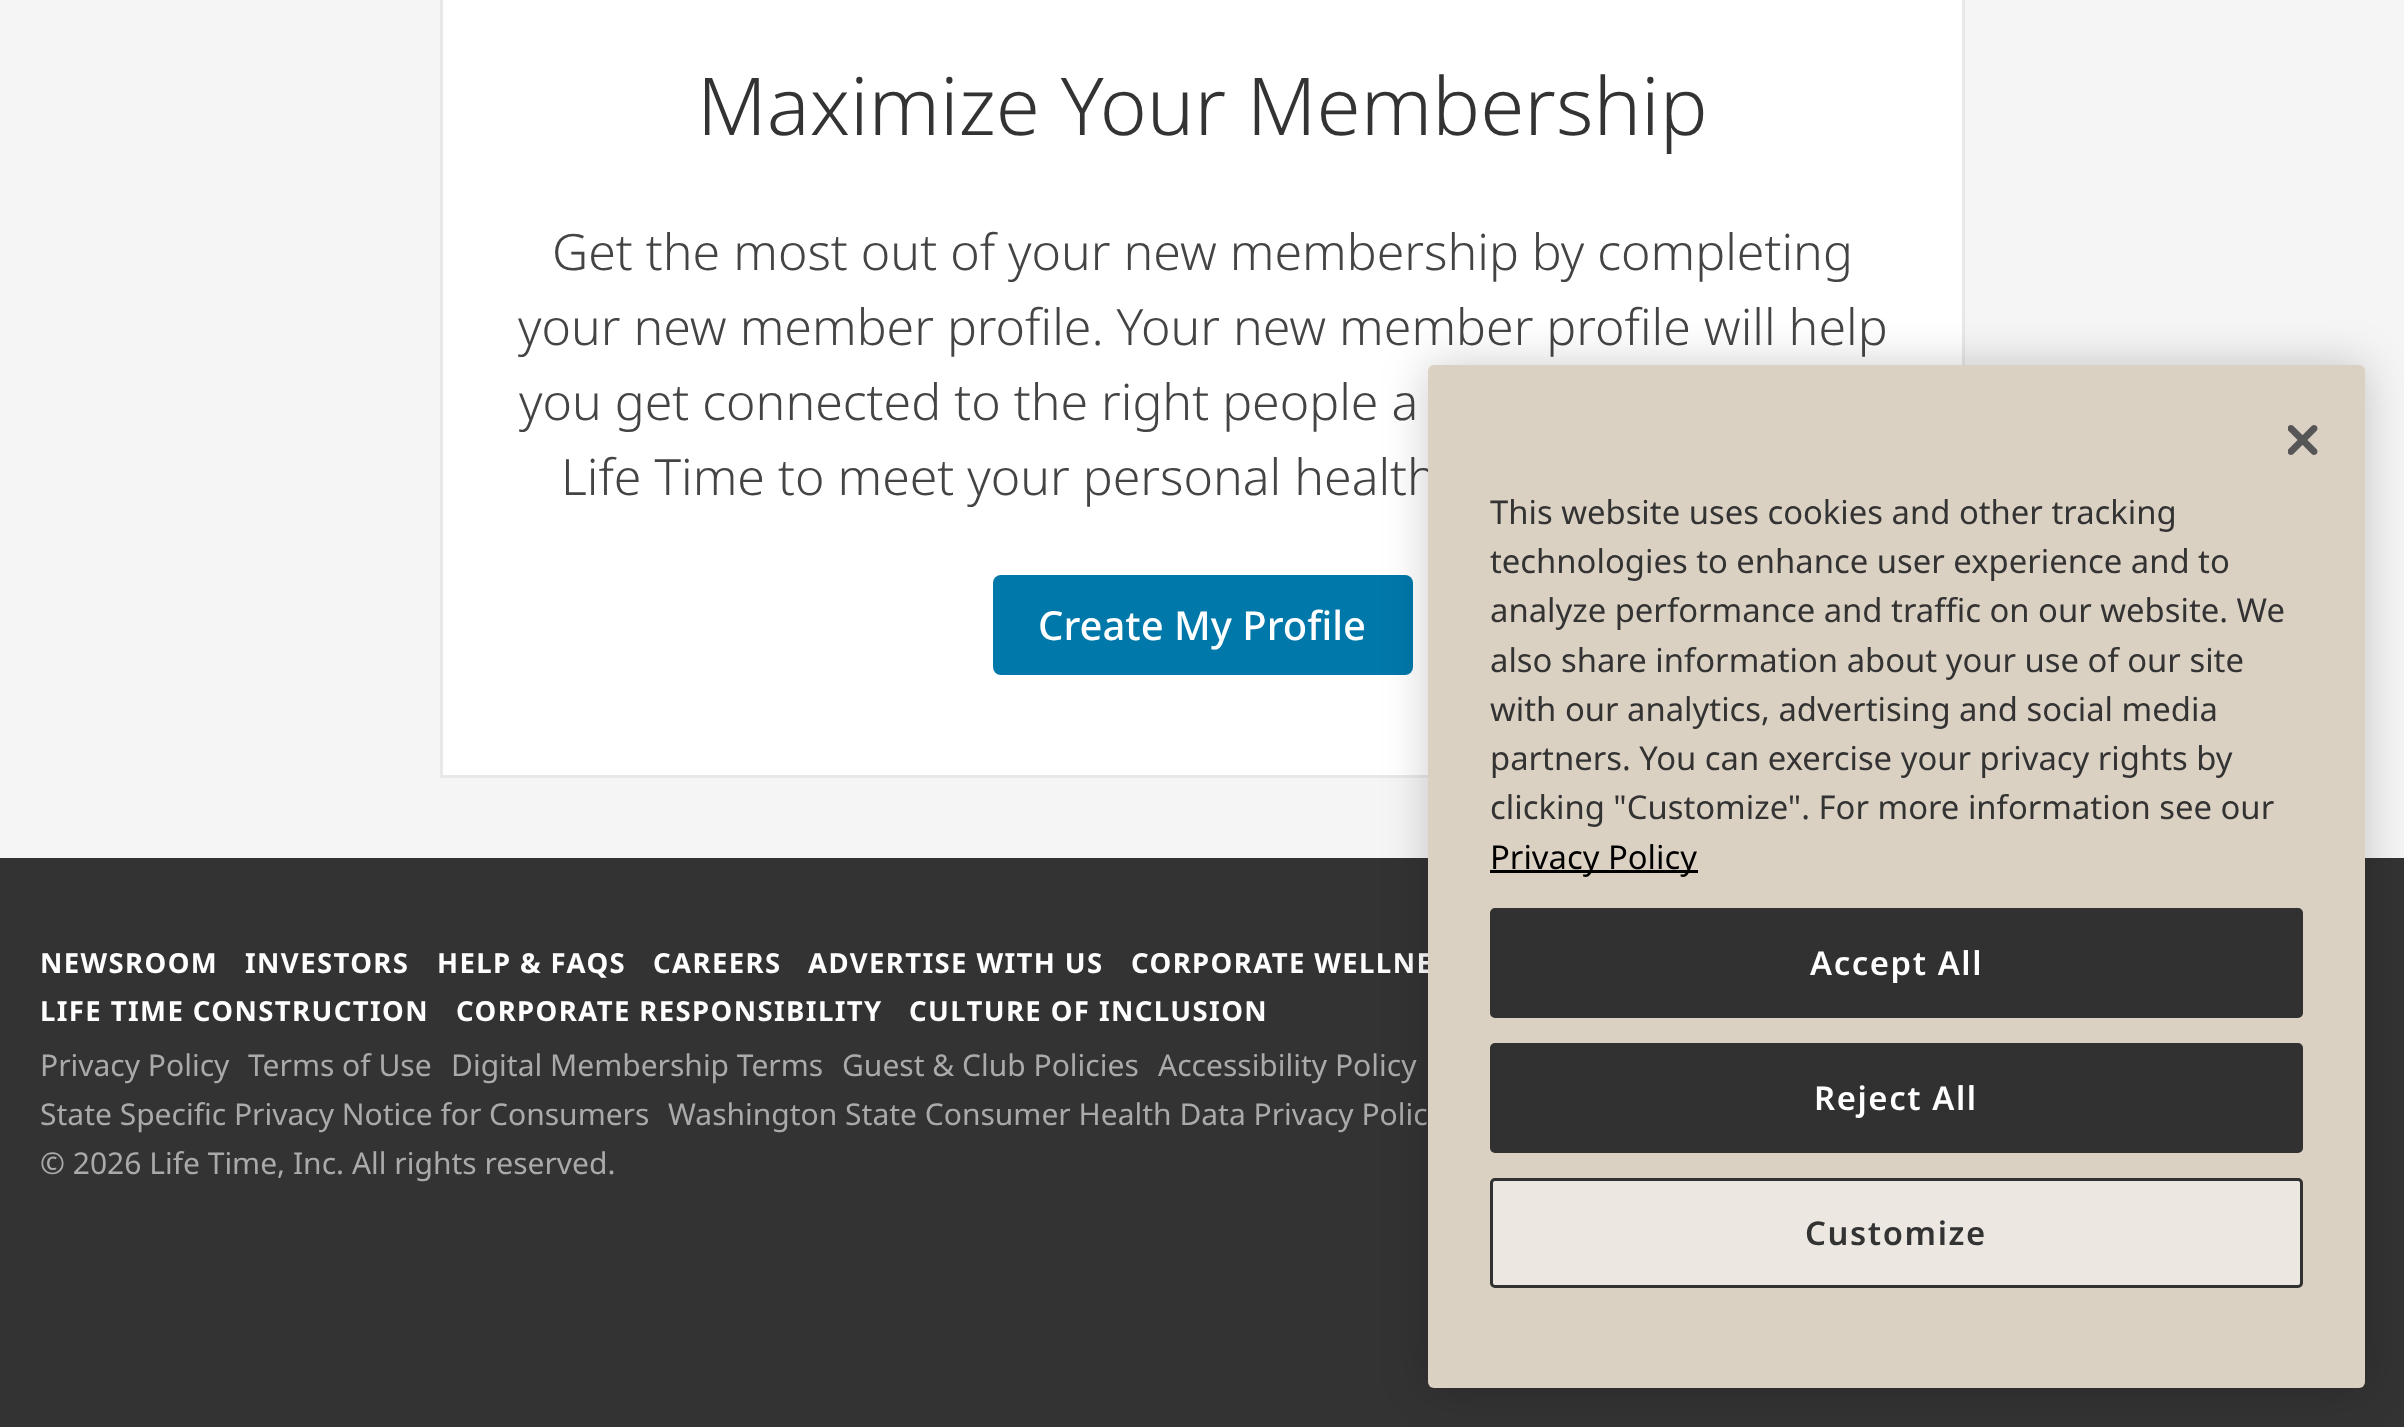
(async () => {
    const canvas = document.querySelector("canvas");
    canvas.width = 2404;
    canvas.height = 1427;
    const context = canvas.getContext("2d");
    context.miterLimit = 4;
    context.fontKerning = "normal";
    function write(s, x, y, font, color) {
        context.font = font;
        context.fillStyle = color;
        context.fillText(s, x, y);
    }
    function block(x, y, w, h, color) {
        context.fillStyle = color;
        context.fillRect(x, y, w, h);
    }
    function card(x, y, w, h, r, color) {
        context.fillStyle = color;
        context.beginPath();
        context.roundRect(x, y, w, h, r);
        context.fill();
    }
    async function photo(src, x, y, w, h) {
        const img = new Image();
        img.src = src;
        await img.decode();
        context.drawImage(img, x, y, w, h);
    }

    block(0, 0, 2404, 1427, "rgb(51, 51, 51)");
    block(0, 0, 2404, 858, "rgb(245, 245, 245)");
    context.fillStyle = "rgb(255, 255, 255)";
    context.beginPath();
    context.rect(441.5, -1.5, 1522, 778);
    context.fill();
    context.strokeStyle = "rgb(232, 232, 232)";
    context.lineWidth = 3;
    context.stroke();
    write("Maximize Your Membership", 697, 135, "300 80px Noto Sans", "rgb(51, 51, 51)");
    write("Get the most out of your new membership by completing", 552, 270, "300 50px Noto Sans", "rgb(68, 68, 68)");
    write("your new member profile. Your new member profile will help", 518, 345, "300 50px Noto Sans", "rgb(68, 68, 68)");
    write("you get connected to the right people a", 519, 420, "300 50px Noto Sans", "rgb(68, 68, 68)");
    write("Life Time to meet your personal health", 561, 495, "300 50px Noto Sans", "rgb(68, 68, 68)");
    card(993, 575, 420, 100, 8, "rgb(0, 120, 170)");
    write("Create My Profile", 1038, 640, "500 40px Noto Sans", "rgb(255, 255, 255)");
    context.letterSpacing = "1.4px";
    write("NEWSROOM", 40, 973, "bold 27.5px Noto Sans", "rgb(255, 255, 255)");
    write("INVESTORS", 245, 973, "bold 27.5px Noto Sans", "rgb(255, 255, 255)");
    write("HELP & FAQS", 437, 973, "bold 27.5px Noto Sans", "rgb(255, 255, 255)");
    write("CAREERS", 653, 973, "bold 27.5px Noto Sans", "rgb(255, 255, 255)");
    write("ADVERTISE WITH US", 808, 973, "bold 27.5px Noto Sans", "rgb(255, 255, 255)");
    write("CORPORATE WELLNE", 1131, 973, "bold 27.5px Noto Sans", "rgb(255, 255, 255)");
    write("LIFE TIME CONSTRUCTION", 40, 1021, "bold 27.5px Noto Sans", "rgb(255, 255, 255)");
    write("CORPORATE RESPONSIBILITY", 456, 1021, "bold 27.5px Noto Sans", "rgb(255, 255, 255)");
    write("CULTURE OF INCLUSION", 909, 1021, "bold 27.5px Noto Sans", "rgb(255, 255, 255)");
    context.letterSpacing = "0px";
    write("Privacy Policy", 40, 1076, "30px Noto Sans", "rgb(170, 170, 170)");
    write("Terms of Use", 248, 1076, "30px Noto Sans", "rgb(170, 170, 170)");
    write("Digital Membership Terms", 451, 1076, "30px Noto Sans", "rgb(170, 170, 170)");
    write("Guest & Club Policies", 842, 1076, "30px Noto Sans", "rgb(170, 170, 170)");
    write("Accessibility Policy", 1158, 1076, "30px Noto Sans", "rgb(170, 170, 170)");
    write("State Specific Privacy Notice for Consumers", 40, 1125, "30px Noto Sans", "rgb(170, 170, 170)");
    write("Washington State Consumer Health Data Privacy Polic", 668, 1125, "30px Noto Sans", "rgb(170, 170, 170)");
    write("© 2026 Life Time, Inc. All rights reserved.", 40, 1174, "30px Noto Sans", "rgb(170, 170, 170)");
    context.fillStyle = "rgba(0, 0, 0, 0.2)";
    context.filter = "blur(22.5px)";
    context.beginPath();
    context.roundRect(1428, 365, 937, 1023, 6);
    context.fill();
    context.filter = "none";
    card(1428, 365, 937, 1023, 6, "rgb(219, 209, 195)");
    await photo("media/1.png", 2288, 425, 30, 30);
    write("This website uses cookies and other tracking", 1490, 524, "32.8px Noto Sans", "rgb(51, 51, 51)");
    write("technologies to enhance user experience and to", 1490, 573, "32.8px Noto Sans", "rgb(51, 51, 51)");
    write("analyze performance and traffic on our website. We", 1490, 622, "32.8px Noto Sans", "rgb(51, 51, 51)");
    write("also share information about your use of our site", 1490, 672, "32.8px Noto Sans", "rgb(51, 51, 51)");
    write("with our analytics, advertising and social media", 1490, 721, "32.8px Noto Sans", "rgb(51, 51, 51)");
    write("partners. You can exercise your privacy rights by", 1490, 770, "32.8px Noto Sans", "rgb(51, 51, 51)");
    write("clicking \"Customize\". For more information see our", 1490, 819, "32.8px Noto Sans", "rgb(51, 51, 51)");
    block(1490, 870, 208, 3, "rgb(0, 0, 0)");
    write("Privacy Policy", 1490, 869, "32.8px Noto Sans", "rgb(0, 0, 0)");
    context.fillStyle = "rgb(49, 49, 49)";
    context.beginPath();
    context.roundRect(1491.5, 909.5, 810, 107, 3.5);
    context.fill();
    context.strokeStyle = "rgb(49, 49, 49)";
    context.stroke();
    context.letterSpacing = "1.6px";
    write("Accept All", 1810, 975, "600 32.8px Noto Sans", "rgb(255, 255, 255)");
    context.fillStyle = "rgb(49, 49, 49)";
    context.beginPath();
    context.roundRect(1491.5, 1044.5, 810, 107, 3.5);
    context.fill();
    context.stroke();
    write("Reject All", 1814, 1110, "600 32.8px Noto Sans", "rgb(255, 255, 255)");
    context.fillStyle = "rgb(236, 232, 225)";
    context.beginPath();
    context.roundRect(1491.5, 1179.5, 810, 107, 3.5);
    context.fill();
    context.stroke();
    write("Customize", 1805, 1245, "600 32.8px Noto Sans", "rgb(51, 51, 51)");
})();
